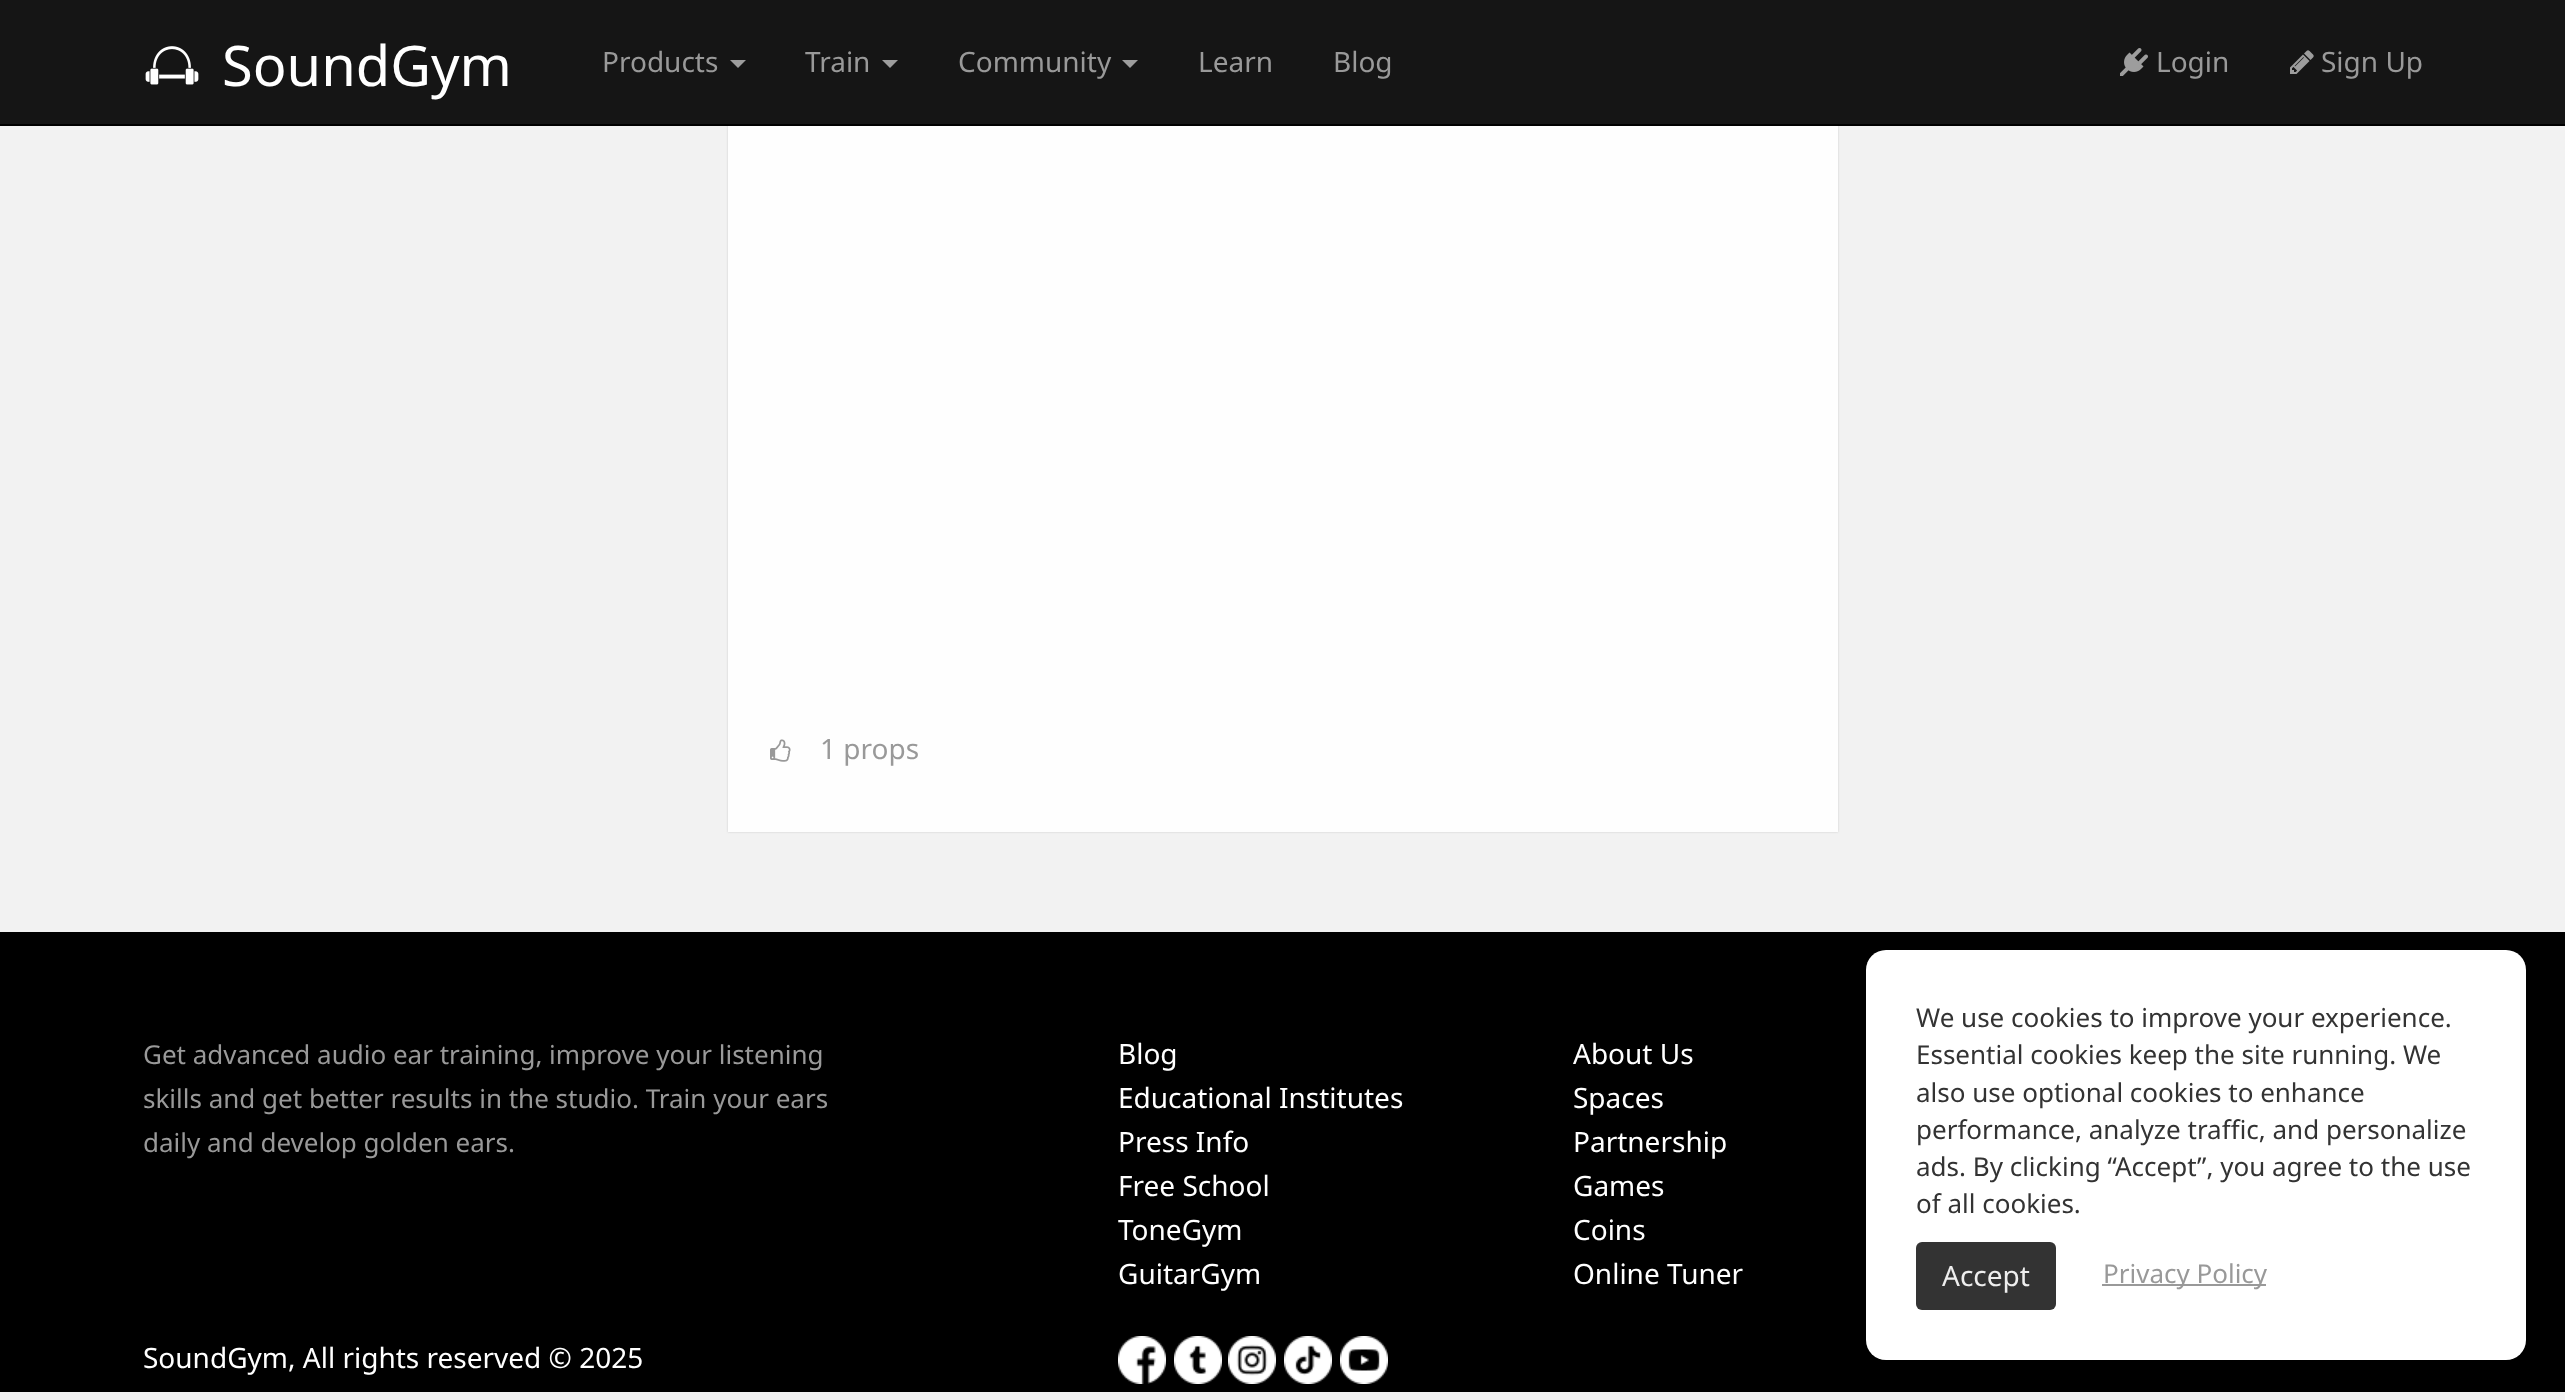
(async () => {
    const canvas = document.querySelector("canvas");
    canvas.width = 2565;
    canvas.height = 1400;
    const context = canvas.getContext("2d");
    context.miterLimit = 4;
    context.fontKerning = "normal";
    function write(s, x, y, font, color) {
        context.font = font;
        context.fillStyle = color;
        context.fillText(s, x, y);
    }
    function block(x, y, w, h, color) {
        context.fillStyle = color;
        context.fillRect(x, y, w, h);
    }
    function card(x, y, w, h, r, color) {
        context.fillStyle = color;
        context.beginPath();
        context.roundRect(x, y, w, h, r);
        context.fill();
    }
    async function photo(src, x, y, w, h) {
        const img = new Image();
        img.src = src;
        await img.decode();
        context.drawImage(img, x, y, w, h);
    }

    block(0, 0, 2565, 1400, "rgb(242, 242, 242)");
    context.fillStyle = "rgb(204, 204, 204)";
    context.filter = "blur(1px)";
    context.beginPath();
    context.rect(728, -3, 1110, 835);
    context.fill();
    context.filter = "none";
    block(0, 0, 2565, 124, "rgb(21, 21, 21)");
    block(0, 124, 2565, 2, "rgb(0, 0, 0)");
    await photo("media/1.png", 145, 46, 54, 39);
    write("SoundGym", 222, 86, "56px Noto Sans", "rgb(255, 255, 255)");
    write("Products", 602, 72, "28px Noto Sans", "rgb(153, 153, 153)");
    context.fillStyle = "rgb(157, 157, 157)";
    context.beginPath();
    context.moveTo(730, 60);
    context.lineTo(746, 60);
    context.lineTo(738, 68);
    context.closePath();
    context.fill();
    write("Train", 805, 72, "28px Noto Sans", "rgb(153, 153, 153)");
    context.fillStyle = "rgb(157, 157, 157)";
    context.beginPath();
    context.moveTo(882, 60);
    context.lineTo(898, 60);
    context.lineTo(890, 68);
    context.closePath();
    context.fill();
    write("Community", 958, 72, "28px Noto Sans", "rgb(153, 153, 153)");
    context.fillStyle = "rgb(157, 157, 157)";
    context.beginPath();
    context.moveTo(1122, 60);
    context.lineTo(1138, 60);
    context.lineTo(1130, 68);
    context.closePath();
    context.fill();
    write("Learn", 1198, 72, "28px Noto Sans", "rgb(153, 153, 153)");
    write("Blog", 1333, 72, "28px Noto Sans", "rgb(153, 153, 153)");
    await photo("media/2.png", 2120, 48, 28, 28);
    write("Login", 2156, 72, "28px Noto Sans", "rgb(153, 153, 153)");
    await photo("media/3.png", 2290, 50, 24, 24);
    write("Sign Up", 2321, 72, "28px Noto Sans", "rgb(153, 153, 153)");
    block(728, 126, 1110, 706, "rgb(254, 254, 254)");
    await photo("media/4.png", 770, 739, 21, 23);
    write("1 props", 820, 759, "28px Noto Sans", "rgb(153, 153, 153)");
    block(0, 932, 2565, 460, "rgb(0, 0, 0)");
    write("Get advanced audio ear training, improve your listening", 143, 1064, "26px Noto Sans", "rgb(153, 153, 153)");
    write("skills and get better results in the studio. Train your ears", 143, 1108, "26px Noto Sans", "rgb(153, 153, 153)");
    write("daily and develop golden ears.", 143, 1152, "26px Noto Sans", "rgb(153, 153, 153)");
    write("Blog", 1118, 1064, "28px Noto Sans", "rgb(255, 255, 255)");
    write("Educational Institutes", 1118, 1108, "28px Noto Sans", "rgb(255, 255, 255)");
    write("Press Info", 1118, 1152, "28px Noto Sans", "rgb(255, 255, 255)");
    write("Free School", 1118, 1196, "28px Noto Sans", "rgb(255, 255, 255)");
    write("ToneGym", 1118, 1240, "28px Noto Sans", "rgb(255, 255, 255)");
    write("GuitarGym", 1118, 1284, "28px Noto Sans", "rgb(255, 255, 255)");
    write("About Us", 1573, 1064, "28px Noto Sans", "rgb(255, 255, 255)");
    write("Spaces", 1573, 1108, "28px Noto Sans", "rgb(255, 255, 255)");
    write("Partnership", 1573, 1152, "28px Noto Sans", "rgb(255, 255, 255)");
    write("Games", 1573, 1196, "28px Noto Sans", "rgb(255, 255, 255)");
    write("Coins", 1573, 1240, "28px Noto Sans", "rgb(255, 255, 255)");
    write("Online Tuner", 1573, 1284, "28px Noto Sans", "rgb(255, 255, 255)");
    write("SoundGym, All rights reserved © 2025", 143, 1368, "28px Noto Sans", "rgb(255, 255, 255)");
    await photo("media/5.png", 1118, 1336, 48, 48);
    await photo("media/6.png", 1174, 1336, 48, 48);
    await photo("media/7.png", 1228, 1336, 48, 48);
    await photo("media/8.png", 1284, 1336, 48, 48);
    await photo("media/9.png", 1340, 1336, 48, 48);
    card(1866, 950, 660, 410, 20, "rgb(255, 255, 255)");
    write("We use cookies to improve your experience.", 1916, 1027, "26px Noto Sans", "rgb(51, 51, 51)");
    write("Essential cookies keep the site running. We", 1916, 1064, "26px Noto Sans", "rgb(51, 51, 51)");
    write("also use optional cookies to enhance", 1916, 1102, "26px Noto Sans", "rgb(51, 51, 51)");
    write("performance, analyze traffic, and personalize", 1916, 1139, "26px Noto Sans", "rgb(51, 51, 51)");
    write("ads. By clicking “Accept”, you agree to the use", 1916, 1176, "26px Noto Sans", "rgb(51, 51, 51)");
    write("of all cookies.", 1916, 1213, "26px Noto Sans", "rgb(51, 51, 51)");
    card(1916, 1242, 140, 68, 6, "rgb(51, 51, 51)");
    write("Accept", 1942, 1286, "28px Noto Sans", "rgb(238, 238, 238)");
    block(2102, 1284, 164, 2, "rgb(153, 153, 153)");
    write("Privacy Policy", 2103, 1283, "26px Noto Sans", "rgb(153, 153, 153)");
})();
